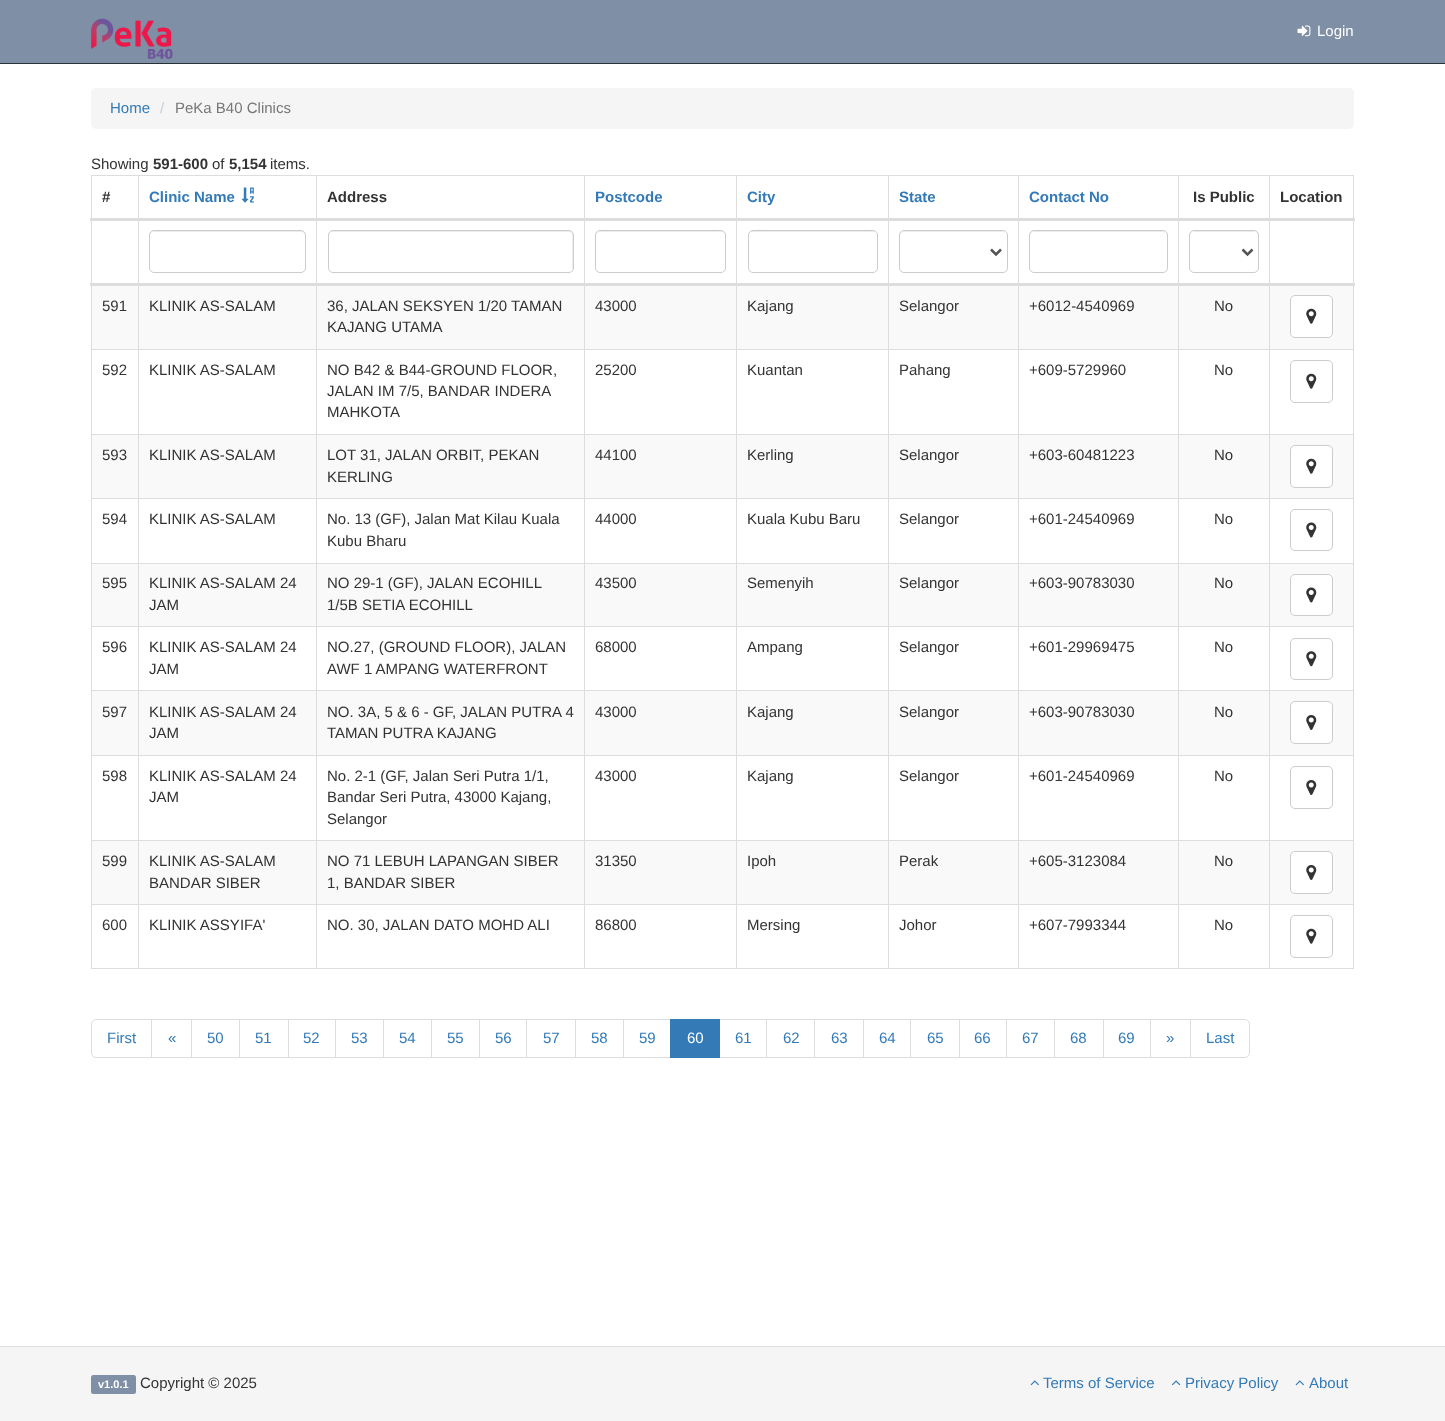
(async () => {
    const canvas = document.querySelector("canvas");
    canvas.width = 1445;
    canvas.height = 1421;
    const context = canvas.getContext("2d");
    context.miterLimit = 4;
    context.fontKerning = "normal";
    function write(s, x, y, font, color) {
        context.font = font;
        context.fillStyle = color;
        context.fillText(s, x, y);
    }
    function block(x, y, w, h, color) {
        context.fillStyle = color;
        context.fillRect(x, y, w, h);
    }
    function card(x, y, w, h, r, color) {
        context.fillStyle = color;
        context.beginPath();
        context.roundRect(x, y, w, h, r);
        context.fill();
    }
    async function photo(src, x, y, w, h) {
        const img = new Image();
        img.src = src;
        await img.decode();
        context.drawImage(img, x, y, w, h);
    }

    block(0, 0, 1445, 1421, "rgb(255, 255, 255)");
    block(0, 0, 1445, 63, "rgb(127, 143, 166)");
    block(0, 63, 1445, 1, "rgb(38, 50, 56)");
    await photo("media/1.png", 91, 18, 82, 41);
    await photo("media/2.png", 1297, 25, 14, 12);
    write("Login", 1317, 36, "15px Liberation Sans", "rgb(255, 255, 255)");
    card(91, 88, 1263, 41, 5, "rgb(245, 245, 245)");
    write("Home", 110, 113, "15px Liberation Sans", "rgb(51, 122, 183)");
    write("/", 160, 113, "15px Liberation Sans", "rgb(204, 204, 204)");
    write("PeKa B40 Clinics", 175, 113, "15px Liberation Sans", "rgb(119, 119, 119)");
    write("Showing", 91, 169, "15px Liberation Sans", "rgb(51, 51, 51)");
    write("591-600", 153, 169, "bold 15px Liberation Sans", "rgb(51, 51, 51)");
    write("of", 212, 169, "15px Liberation Sans", "rgb(51, 51, 51)");
    write("5,154", 229, 169, "bold 15px Liberation Sans", "rgb(51, 51, 51)");
    write("items.", 270, 169, "15px Liberation Sans", "rgb(51, 51, 51)");
    block(91, 175, 1263, 1, "rgb(221, 221, 221)");
    block(1353, 175, 1, 794, "rgb(221, 221, 221)");
    block(91, 968, 1263, 1, "rgb(221, 221, 221)");
    block(91, 175, 1, 794, "rgb(221, 221, 221)");
    write("#", 102, 202, "bold 15px Liberation Sans", "rgb(51, 51, 51)");
    write("Clinic Name", 149, 202, "bold 15px Liberation Sans", "rgb(51, 122, 183)");
    await photo("media/3.png", 241, 187, 13, 16);
    write("Address", 327, 202, "bold 15px Liberation Sans", "rgb(51, 51, 51)");
    write("Postcode", 595, 202, "bold 15px Liberation Sans", "rgb(51, 122, 183)");
    write("City", 747, 202, "bold 15px Liberation Sans", "rgb(51, 122, 183)");
    write("State", 899, 202, "bold 15px Liberation Sans", "rgb(51, 122, 183)");
    write("Contact No", 1029, 202, "bold 15px Liberation Sans", "rgb(51, 122, 183)");
    write("Is Public", 1193, 202, "bold 15px Liberation Sans", "rgb(51, 51, 51)");
    block(92, 286, 1261, 63, "rgb(249, 249, 249)");
    block(1269, 349, 85, 1, "rgb(221, 221, 221)");
    block(1269, 434, 85, 1, "rgb(221, 221, 221)");
    block(92, 435, 1261, 63, "rgb(249, 249, 249)");
    block(1269, 498, 85, 1, "rgb(221, 221, 221)");
    block(1269, 563, 85, 1, "rgb(221, 221, 221)");
    block(92, 564, 1261, 62, "rgb(249, 249, 249)");
    block(1269, 626, 85, 1, "rgb(221, 221, 221)");
    block(1269, 690, 85, 1, "rgb(221, 221, 221)");
    block(92, 691, 1261, 64, "rgb(249, 249, 249)");
    block(1269, 755, 85, 1, "rgb(221, 221, 221)");
    block(1269, 840, 85, 1, "rgb(221, 221, 221)");
    block(92, 841, 1261, 63, "rgb(249, 249, 249)");
    block(1269, 904, 85, 1, "rgb(221, 221, 221)");
    block(1269, 904, 1, 65, "rgb(221, 221, 221)");
    block(1178, 904, 92, 1, "rgb(221, 221, 221)");
    block(1269, 840, 1, 65, "rgb(221, 221, 221)");
    block(1178, 840, 92, 1, "rgb(221, 221, 221)");
    block(1269, 755, 1, 86, "rgb(221, 221, 221)");
    block(1178, 755, 92, 1, "rgb(221, 221, 221)");
    block(1269, 690, 1, 66, "rgb(221, 221, 221)");
    block(1178, 690, 92, 1, "rgb(221, 221, 221)");
    block(1269, 626, 1, 65, "rgb(221, 221, 221)");
    block(1178, 626, 92, 1, "rgb(221, 221, 221)");
    block(1269, 563, 1, 65, "rgb(221, 221, 221)");
    block(1178, 563, 92, 1, "rgb(221, 221, 221)");
    block(1269, 498, 1, 66, "rgb(221, 221, 221)");
    block(1178, 498, 92, 1, "rgb(221, 221, 221)");
    block(1269, 434, 1, 65, "rgb(221, 221, 221)");
    block(1178, 434, 92, 1, "rgb(221, 221, 221)");
    block(1269, 349, 1, 86, "rgb(221, 221, 221)");
    block(1178, 349, 92, 1, "rgb(221, 221, 221)");
    block(1178, 904, 1, 65, "rgb(221, 221, 221)");
    block(1018, 904, 161, 1, "rgb(221, 221, 221)");
    block(1178, 840, 1, 65, "rgb(221, 221, 221)");
    block(1018, 840, 161, 1, "rgb(221, 221, 221)");
    block(1178, 755, 1, 86, "rgb(221, 221, 221)");
    block(1018, 755, 161, 1, "rgb(221, 221, 221)");
    block(1178, 690, 1, 66, "rgb(221, 221, 221)");
    block(1018, 690, 161, 1, "rgb(221, 221, 221)");
    block(1178, 626, 1, 65, "rgb(221, 221, 221)");
    block(1018, 626, 161, 1, "rgb(221, 221, 221)");
    block(1178, 563, 1, 65, "rgb(221, 221, 221)");
    block(1018, 563, 161, 1, "rgb(221, 221, 221)");
    block(1178, 498, 1, 66, "rgb(221, 221, 221)");
    block(1018, 498, 161, 1, "rgb(221, 221, 221)");
    block(1178, 434, 1, 65, "rgb(221, 221, 221)");
    block(1018, 434, 161, 1, "rgb(221, 221, 221)");
    block(1178, 349, 1, 86, "rgb(221, 221, 221)");
    block(1018, 349, 161, 1, "rgb(221, 221, 221)");
    block(1018, 904, 1, 65, "rgb(221, 221, 221)");
    block(888, 904, 131, 1, "rgb(221, 221, 221)");
    block(1018, 840, 1, 65, "rgb(221, 221, 221)");
    block(888, 840, 131, 1, "rgb(221, 221, 221)");
    block(1018, 755, 1, 86, "rgb(221, 221, 221)");
    block(888, 755, 131, 1, "rgb(221, 221, 221)");
    block(1018, 690, 1, 66, "rgb(221, 221, 221)");
    block(888, 690, 131, 1, "rgb(221, 221, 221)");
    block(1018, 626, 1, 65, "rgb(221, 221, 221)");
    block(888, 626, 131, 1, "rgb(221, 221, 221)");
    block(1018, 563, 1, 65, "rgb(221, 221, 221)");
    block(888, 563, 131, 1, "rgb(221, 221, 221)");
    block(1018, 498, 1, 66, "rgb(221, 221, 221)");
    block(888, 498, 131, 1, "rgb(221, 221, 221)");
    block(1018, 434, 1, 65, "rgb(221, 221, 221)");
    block(888, 434, 131, 1, "rgb(221, 221, 221)");
    block(1018, 349, 1, 86, "rgb(221, 221, 221)");
    block(888, 349, 131, 1, "rgb(221, 221, 221)");
    block(888, 904, 1, 65, "rgb(221, 221, 221)");
    block(736, 904, 153, 1, "rgb(221, 221, 221)");
    block(888, 840, 1, 65, "rgb(221, 221, 221)");
    block(736, 840, 153, 1, "rgb(221, 221, 221)");
    block(888, 755, 1, 86, "rgb(221, 221, 221)");
    block(736, 755, 153, 1, "rgb(221, 221, 221)");
    block(888, 690, 1, 66, "rgb(221, 221, 221)");
    block(736, 690, 153, 1, "rgb(221, 221, 221)");
    block(888, 626, 1, 65, "rgb(221, 221, 221)");
    block(736, 626, 153, 1, "rgb(221, 221, 221)");
    block(888, 563, 1, 65, "rgb(221, 221, 221)");
    block(736, 563, 153, 1, "rgb(221, 221, 221)");
    block(888, 498, 1, 66, "rgb(221, 221, 221)");
    block(736, 498, 153, 1, "rgb(221, 221, 221)");
    block(888, 434, 1, 65, "rgb(221, 221, 221)");
    block(736, 434, 153, 1, "rgb(221, 221, 221)");
    block(888, 349, 1, 86, "rgb(221, 221, 221)");
    block(736, 349, 153, 1, "rgb(221, 221, 221)");
    block(736, 904, 1, 65, "rgb(221, 221, 221)");
    block(584, 904, 154, 1, "rgb(221, 221, 221)");
    block(736, 840, 1, 65, "rgb(221, 221, 221)");
    block(584, 840, 154, 1, "rgb(221, 221, 221)");
    block(736, 755, 1, 86, "rgb(221, 221, 221)");
    block(584, 755, 154, 1, "rgb(221, 221, 221)");
    block(736, 690, 1, 66, "rgb(221, 221, 221)");
    block(584, 690, 154, 1, "rgb(221, 221, 221)");
    block(736, 626, 1, 65, "rgb(221, 221, 221)");
    block(584, 626, 154, 1, "rgb(221, 221, 221)");
    block(736, 563, 1, 65, "rgb(221, 221, 221)");
    block(584, 563, 154, 1, "rgb(221, 221, 221)");
    block(736, 498, 1, 66, "rgb(221, 221, 221)");
    block(584, 498, 154, 1, "rgb(221, 221, 221)");
    block(736, 434, 1, 65, "rgb(221, 221, 221)");
    block(584, 434, 154, 1, "rgb(221, 221, 221)");
    block(736, 349, 1, 86, "rgb(221, 221, 221)");
    block(584, 349, 154, 1, "rgb(221, 221, 221)");
    block(584, 904, 1, 65, "rgb(221, 221, 221)");
    block(316, 904, 269, 1, "rgb(221, 221, 221)");
    block(584, 840, 1, 65, "rgb(221, 221, 221)");
    block(316, 840, 269, 1, "rgb(221, 221, 221)");
    block(584, 755, 1, 86, "rgb(221, 221, 221)");
    block(316, 755, 269, 1, "rgb(221, 221, 221)");
    block(584, 690, 1, 66, "rgb(221, 221, 221)");
    block(316, 690, 269, 1, "rgb(221, 221, 221)");
    block(584, 626, 1, 65, "rgb(221, 221, 221)");
    block(316, 626, 269, 1, "rgb(221, 221, 221)");
    block(584, 563, 1, 65, "rgb(221, 221, 221)");
    block(316, 563, 269, 1, "rgb(221, 221, 221)");
    block(584, 498, 1, 66, "rgb(221, 221, 221)");
    block(316, 498, 269, 1, "rgb(221, 221, 221)");
    block(584, 434, 1, 65, "rgb(221, 221, 221)");
    block(316, 434, 269, 1, "rgb(221, 221, 221)");
    block(584, 349, 1, 86, "rgb(221, 221, 221)");
    block(316, 349, 269, 1, "rgb(221, 221, 221)");
    block(316, 904, 1, 65, "rgb(221, 221, 221)");
    block(138, 904, 180, 1, "rgb(221, 221, 221)");
    block(316, 840, 1, 65, "rgb(221, 221, 221)");
    block(138, 840, 180, 1, "rgb(221, 221, 221)");
    block(316, 755, 1, 86, "rgb(221, 221, 221)");
    block(138, 755, 180, 1, "rgb(221, 221, 221)");
    block(316, 690, 1, 66, "rgb(221, 221, 221)");
    block(138, 690, 180, 1, "rgb(221, 221, 221)");
    block(316, 626, 1, 65, "rgb(221, 221, 221)");
    block(138, 626, 180, 1, "rgb(221, 221, 221)");
    block(316, 563, 1, 65, "rgb(221, 221, 221)");
    block(138, 563, 180, 1, "rgb(221, 221, 221)");
    block(316, 498, 1, 66, "rgb(221, 221, 221)");
    block(138, 498, 180, 1, "rgb(221, 221, 221)");
    block(316, 434, 1, 65, "rgb(221, 221, 221)");
    block(138, 434, 180, 1, "rgb(221, 221, 221)");
    block(316, 349, 1, 86, "rgb(221, 221, 221)");
    block(138, 349, 180, 1, "rgb(221, 221, 221)");
    block(138, 904, 1, 65, "rgb(221, 221, 221)");
    block(91, 904, 48, 1, "rgb(221, 221, 221)");
    block(138, 840, 1, 65, "rgb(221, 221, 221)");
    block(91, 840, 48, 1, "rgb(221, 221, 221)");
    block(138, 755, 1, 86, "rgb(221, 221, 221)");
    block(91, 755, 48, 1, "rgb(221, 221, 221)");
    block(138, 690, 1, 66, "rgb(221, 221, 221)");
    block(91, 690, 48, 1, "rgb(221, 221, 221)");
    block(138, 626, 1, 65, "rgb(221, 221, 221)");
    block(91, 626, 48, 1, "rgb(221, 221, 221)");
    block(138, 563, 1, 65, "rgb(221, 221, 221)");
    block(91, 563, 48, 1, "rgb(221, 221, 221)");
    block(138, 498, 1, 66, "rgb(221, 221, 221)");
    block(91, 498, 48, 1, "rgb(221, 221, 221)");
    block(138, 434, 1, 65, "rgb(221, 221, 221)");
    block(91, 434, 48, 1, "rgb(221, 221, 221)");
    block(138, 349, 1, 86, "rgb(221, 221, 221)");
    block(91, 349, 48, 1, "rgb(221, 221, 221)");
    block(138, 175, 1, 175, "rgb(221, 221, 221)");
    block(316, 175, 1, 175, "rgb(221, 221, 221)");
    block(584, 175, 1, 175, "rgb(221, 221, 221)");
    block(736, 175, 1, 175, "rgb(221, 221, 221)");
    block(888, 175, 1, 175, "rgb(221, 221, 221)");
    block(1018, 175, 1, 175, "rgb(221, 221, 221)");
    block(1178, 175, 1, 175, "rgb(221, 221, 221)");
    block(1269, 175, 1, 175, "rgb(221, 221, 221)");
    block(90, 218, 1265, 3, "rgb(221, 221, 221)");
    write("Location", 1280, 202, "bold 15px Liberation Sans", "rgb(51, 51, 51)");
    context.fillStyle = "rgb(236, 236, 236)";
    context.beginPath();
    context.moveTo(154, 232);
    context.lineTo(301, 232);
    context.bezierCurveTo(303, 232, 305, 234, 305, 236);
    context.bezierCurveTo(305, 234, 304, 232, 302, 231);
    context.lineTo(153, 231);
    context.bezierCurveTo(151, 232, 150, 234, 150, 236);
    context.bezierCurveTo(150, 234, 152, 232, 154, 232);
    context.closePath();
    context.fill();
    context.beginPath();
    context.roundRect(149.5, 230.5, 156, 42, 4.5);
    context.strokeStyle = "rgb(204, 204, 204)";
    context.stroke();
    context.beginPath();
    context.moveTo(332, 232);
    context.lineTo(569, 232);
    context.bezierCurveTo(571, 232, 572, 234, 572, 236);
    context.lineTo(572, 270);
    context.bezierCurveTo(573, 269, 573, 268, 573, 267);
    context.lineTo(573, 235);
    context.bezierCurveTo(573, 233, 571, 231, 569, 231);
    context.lineTo(333, 231);
    context.bezierCurveTo(331, 231, 329, 233, 329, 235);
    context.lineTo(329, 236);
    context.bezierCurveTo(329, 234, 330, 232, 332, 232);
    context.closePath();
    context.fill();
    context.beginPath();
    context.roundRect(328.5, 230.5, 245, 42, 4.5);
    context.stroke();
    context.beginPath();
    context.moveTo(600, 232);
    context.lineTo(721, 232);
    context.bezierCurveTo(723, 232, 725, 234, 725, 236);
    context.bezierCurveTo(725, 226, 703, 231, 701, 231);
    context.lineTo(620, 231);
    context.bezierCurveTo(618, 231, 596, 226, 596, 236);
    context.bezierCurveTo(596, 234, 598, 232, 600, 232);
    context.closePath();
    context.fill();
    context.beginPath();
    context.roundRect(595.5, 230.5, 130, 42, 4.5);
    context.stroke();
    context.beginPath();
    context.moveTo(752, 232);
    context.lineTo(872, 232);
    context.bezierCurveTo(875, 232, 876, 234, 876, 236);
    context.bezierCurveTo(876, 226, 855, 231, 852, 231);
    context.lineTo(773, 231);
    context.bezierCurveTo(770, 231, 749, 226, 749, 236);
    context.bezierCurveTo(749, 234, 750, 232, 752, 232);
    context.closePath();
    context.fill();
    context.beginPath();
    context.roundRect(748.5, 230.5, 129, 42, 4.5);
    context.stroke();
    context.beginPath();
    context.moveTo(904, 232);
    context.lineTo(1002, 232);
    context.bezierCurveTo(1005, 232, 1006, 234, 1006, 236);
    context.bezierCurveTo(1006, 227, 990, 231, 986, 231);
    context.lineTo(920, 231);
    context.bezierCurveTo(916, 231, 900, 227, 900, 236);
    context.bezierCurveTo(900, 234, 902, 232, 904, 232);
    context.closePath();
    context.fill();
    context.beginPath();
    context.roundRect(899.5, 230.5, 108, 42, 4.5);
    context.stroke();
    context.beginPath();
    context.moveTo(991, 249.5);
    context.lineTo(996, 254.5);
    context.lineTo(1001, 249.5);
    context.strokeStyle = "rgb(85, 85, 85)";
    context.lineWidth = 2.5;
    context.stroke();
    context.beginPath();
    context.moveTo(1034, 232);
    context.lineTo(1162, 232);
    context.bezierCurveTo(1165, 232, 1166, 234, 1166, 236);
    context.lineTo(1166, 235);
    context.bezierCurveTo(1166, 233, 1164, 231, 1162, 231);
    context.lineTo(1034, 231);
    context.bezierCurveTo(1032, 231, 1030, 233, 1030, 235);
    context.lineTo(1030, 236);
    context.bezierCurveTo(1030, 234, 1032, 232, 1034, 232);
    context.closePath();
    context.fill();
    context.beginPath();
    context.roundRect(1029.5, 230.5, 138, 42, 4.5);
    context.strokeStyle = "rgb(204, 204, 204)";
    context.lineWidth = 1;
    context.stroke();
    context.beginPath();
    context.moveTo(1194, 232);
    context.lineTo(1254, 232);
    context.bezierCurveTo(1256, 232, 1258, 234, 1258, 236);
    context.bezierCurveTo(1258, 229, 1249, 231, 1244, 231);
    context.lineTo(1204, 231);
    context.bezierCurveTo(1199, 231, 1190, 229, 1190, 236);
    context.bezierCurveTo(1190, 234, 1192, 232, 1194, 232);
    context.closePath();
    context.fill();
    context.beginPath();
    context.roundRect(1189.5, 230.5, 69, 42, 4.5);
    context.stroke();
    context.beginPath();
    context.moveTo(1242.5, 249.5);
    context.lineTo(1247.5, 254.5);
    context.lineTo(1252.5, 249.5);
    context.strokeStyle = "rgb(85, 85, 85)";
    context.lineWidth = 2.5;
    context.stroke();
    block(90, 283, 1265, 3, "rgb(221, 221, 221)");
    write("591", 102, 311, "15px Liberation Sans", "rgb(51, 51, 51)");
    write("KLINIK AS-SALAM", 149, 311, "15px Liberation Sans", "rgb(51, 51, 51)");
    write("36, JALAN SEKSYEN 1/20 TAMAN", 327, 311, "15px Liberation Sans", "rgb(51, 51, 51)");
    write("KAJANG UTAMA", 327, 332, "15px Liberation Sans", "rgb(51, 51, 51)");
    write("43000", 595, 311, "15px Liberation Sans", "rgb(51, 51, 51)");
    write("Kajang", 747, 311, "15px Liberation Sans", "rgb(51, 51, 51)");
    write("Selangor", 899, 311, "15px Liberation Sans", "rgb(51, 51, 51)");
    write("+6012-4540969", 1029, 311, "15px Liberation Sans", "rgb(51, 51, 51)");
    write("No", 1214, 311, "15px Liberation Sans", "rgb(51, 51, 51)");
    context.fillStyle = "rgb(255, 255, 255)";
    context.beginPath();
    context.roundRect(1290.5, 295.5, 42, 42, 4.5);
    context.fill();
    context.strokeStyle = "rgb(204, 204, 204)";
    context.lineWidth = 1;
    context.stroke();
    await photo("media/4.png", 1306, 308, 11, 16);
    write("592", 102, 375, "15px Liberation Sans", "rgb(51, 51, 51)");
    write("KLINIK AS-SALAM", 149, 375, "15px Liberation Sans", "rgb(51, 51, 51)");
    write("NO B42 & B44-GROUND FLOOR,", 327, 375, "15px Liberation Sans", "rgb(51, 51, 51)");
    write("JALAN IM 7/5, BANDAR INDERA", 327, 396, "15px Liberation Sans", "rgb(51, 51, 51)");
    write("MAHKOTA", 327, 417, "15px Liberation Sans", "rgb(51, 51, 51)");
    write("25200", 595, 375, "15px Liberation Sans", "rgb(51, 51, 51)");
    write("Kuantan", 747, 375, "15px Liberation Sans", "rgb(51, 51, 51)");
    write("Pahang", 899, 375, "15px Liberation Sans", "rgb(51, 51, 51)");
    write("+609-5729960", 1029, 375, "15px Liberation Sans", "rgb(51, 51, 51)");
    write("No", 1214, 375, "15px Liberation Sans", "rgb(51, 51, 51)");
    context.beginPath();
    context.roundRect(1290.5, 360.5, 42, 42, 4.5);
    context.stroke();
    await photo("media/4.png", 1306, 373, 11, 16);
    write("593", 102, 460, "15px Liberation Sans", "rgb(51, 51, 51)");
    write("KLINIK AS-SALAM", 149, 460, "15px Liberation Sans", "rgb(51, 51, 51)");
    write("LOT 31, JALAN ORBIT, PEKAN", 327, 460, "15px Liberation Sans", "rgb(51, 51, 51)");
    write("KERLING", 327, 482, "15px Liberation Sans", "rgb(51, 51, 51)");
    write("44100", 595, 460, "15px Liberation Sans", "rgb(51, 51, 51)");
    write("Kerling", 747, 460, "15px Liberation Sans", "rgb(51, 51, 51)");
    write("Selangor", 899, 460, "15px Liberation Sans", "rgb(51, 51, 51)");
    write("+603-60481223", 1029, 460, "15px Liberation Sans", "rgb(51, 51, 51)");
    write("No", 1214, 460, "15px Liberation Sans", "rgb(51, 51, 51)");
    context.fillStyle = "rgb(255, 255, 255)";
    context.beginPath();
    context.roundRect(1290.5, 445.5, 42, 42, 4.5);
    context.fill();
    context.stroke();
    await photo("media/4.png", 1306, 458, 11, 16);
    write("594", 102, 524, "15px Liberation Sans", "rgb(51, 51, 51)");
    write("KLINIK AS-SALAM", 149, 524, "15px Liberation Sans", "rgb(51, 51, 51)");
    write("No. 13 (GF), Jalan Mat Kilau Kuala", 327, 524, "15px Liberation Sans", "rgb(51, 51, 51)");
    write("Kubu Bharu", 327, 546, "15px Liberation Sans", "rgb(51, 51, 51)");
    write("44000", 595, 524, "15px Liberation Sans", "rgb(51, 51, 51)");
    write("Kuala Kubu Baru", 747, 524, "15px Liberation Sans", "rgb(51, 51, 51)");
    write("Selangor", 899, 524, "15px Liberation Sans", "rgb(51, 51, 51)");
    write("+601-24540969", 1029, 524, "15px Liberation Sans", "rgb(51, 51, 51)");
    write("No", 1214, 524, "15px Liberation Sans", "rgb(51, 51, 51)");
    context.beginPath();
    context.roundRect(1290.5, 509.5, 42, 41, 4.5);
    context.stroke();
    await photo("media/5.png", 1306, 522, 11, 16);
    write("595", 102, 588, "15px Liberation Sans", "rgb(51, 51, 51)");
    write("KLINIK AS-SALAM 24", 149, 588, "15px Liberation Sans", "rgb(51, 51, 51)");
    write("JAM", 149, 610, "15px Liberation Sans", "rgb(51, 51, 51)");
    write("NO 29-1 (GF), JALAN ECOHILL", 327, 588, "15px Liberation Sans", "rgb(51, 51, 51)");
    write("1/5B SETIA ECOHILL", 327, 610, "15px Liberation Sans", "rgb(51, 51, 51)");
    write("43500", 595, 588, "15px Liberation Sans", "rgb(51, 51, 51)");
    write("Semenyih", 747, 588, "15px Liberation Sans", "rgb(51, 51, 51)");
    write("Selangor", 899, 588, "15px Liberation Sans", "rgb(51, 51, 51)");
    write("+603-90783030", 1029, 588, "15px Liberation Sans", "rgb(51, 51, 51)");
    write("No", 1214, 588, "15px Liberation Sans", "rgb(51, 51, 51)");
    context.fillStyle = "rgb(255, 255, 255)";
    context.beginPath();
    context.roundRect(1290.5, 574.5, 42, 41, 4.5);
    context.fill();
    context.stroke();
    await photo("media/5.png", 1306, 587, 11, 16);
    write("596", 102, 652, "15px Liberation Sans", "rgb(51, 51, 51)");
    write("KLINIK AS-SALAM 24", 149, 652, "15px Liberation Sans", "rgb(51, 51, 51)");
    write("JAM", 149, 674, "15px Liberation Sans", "rgb(51, 51, 51)");
    write("NO.27, (GROUND FLOOR), JALAN", 327, 652, "15px Liberation Sans", "rgb(51, 51, 51)");
    write("AWF 1 AMPANG WATERFRONT", 327, 674, "15px Liberation Sans", "rgb(51, 51, 51)");
    write("68000", 595, 652, "15px Liberation Sans", "rgb(51, 51, 51)");
    write("Ampang", 747, 652, "15px Liberation Sans", "rgb(51, 51, 51)");
    write("Selangor", 899, 652, "15px Liberation Sans", "rgb(51, 51, 51)");
    write("+601-29969475", 1029, 652, "15px Liberation Sans", "rgb(51, 51, 51)");
    write("No", 1214, 652, "15px Liberation Sans", "rgb(51, 51, 51)");
    context.beginPath();
    context.roundRect(1290.5, 638.5, 42, 41, 4.5);
    context.stroke();
    await photo("media/6.png", 1306, 651, 11, 16);
    write("597", 102, 717, "15px Liberation Sans", "rgb(51, 51, 51)");
    write("KLINIK AS-SALAM 24", 149, 717, "15px Liberation Sans", "rgb(51, 51, 51)");
    write("JAM", 149, 738, "15px Liberation Sans", "rgb(51, 51, 51)");
    write("NO. 3A, 5 & 6 - GF, JALAN PUTRA 4", 327, 717, "15px Liberation Sans", "rgb(51, 51, 51)");
    write("TAMAN PUTRA KAJANG", 327, 738, "15px Liberation Sans", "rgb(51, 51, 51)");
    write("43000", 595, 717, "15px Liberation Sans", "rgb(51, 51, 51)");
    write("Kajang", 747, 717, "15px Liberation Sans", "rgb(51, 51, 51)");
    write("Selangor", 899, 717, "15px Liberation Sans", "rgb(51, 51, 51)");
    write("+603-90783030", 1029, 717, "15px Liberation Sans", "rgb(51, 51, 51)");
    write("No", 1214, 717, "15px Liberation Sans", "rgb(51, 51, 51)");
    context.fillStyle = "rgb(255, 255, 255)";
    context.beginPath();
    context.roundRect(1290.5, 701.5, 42, 42, 4.5);
    context.fill();
    context.stroke();
    await photo("media/7.png", 1306, 715, 11, 15);
    write("598", 102, 781, "15px Liberation Sans", "rgb(51, 51, 51)");
    write("KLINIK AS-SALAM 24", 149, 781, "15px Liberation Sans", "rgb(51, 51, 51)");
    write("JAM", 149, 802, "15px Liberation Sans", "rgb(51, 51, 51)");
    write("No. 2-1 (GF, Jalan Seri Putra 1/1,", 327, 781, "15px Liberation Sans", "rgb(51, 51, 51)");
    write("Bandar Seri Putra, 43000 Kajang,", 327, 802, "15px Liberation Sans", "rgb(51, 51, 51)");
    write("Selangor", 327, 824, "15px Liberation Sans", "rgb(51, 51, 51)");
    write("43000", 595, 781, "15px Liberation Sans", "rgb(51, 51, 51)");
    write("Kajang", 747, 781, "15px Liberation Sans", "rgb(51, 51, 51)");
    write("Selangor", 899, 781, "15px Liberation Sans", "rgb(51, 51, 51)");
    write("+601-24540969", 1029, 781, "15px Liberation Sans", "rgb(51, 51, 51)");
    write("No", 1214, 781, "15px Liberation Sans", "rgb(51, 51, 51)");
    context.beginPath();
    context.roundRect(1290.5, 766.5, 42, 42, 4.5);
    context.stroke();
    await photo("media/7.png", 1306, 780, 11, 15);
    write("599", 102, 866, "15px Liberation Sans", "rgb(51, 51, 51)");
    write("KLINIK AS-SALAM", 149, 866, "15px Liberation Sans", "rgb(51, 51, 51)");
    write("BANDAR SIBER", 149, 888, "15px Liberation Sans", "rgb(51, 51, 51)");
    write("NO 71 LEBUH LAPANGAN SIBER", 327, 866, "15px Liberation Sans", "rgb(51, 51, 51)");
    write("1, BANDAR SIBER", 327, 888, "15px Liberation Sans", "rgb(51, 51, 51)");
    write("31350", 595, 866, "15px Liberation Sans", "rgb(51, 51, 51)");
    write("Ipoh", 747, 866, "15px Liberation Sans", "rgb(51, 51, 51)");
    write("Perak", 899, 866, "15px Liberation Sans", "rgb(51, 51, 51)");
    write("+605-3123084", 1029, 866, "15px Liberation Sans", "rgb(51, 51, 51)");
    write("No", 1214, 866, "15px Liberation Sans", "rgb(51, 51, 51)");
    context.fillStyle = "rgb(255, 255, 255)";
    context.beginPath();
    context.roundRect(1290.5, 851.5, 42, 42, 4.5);
    context.fill();
    context.stroke();
    await photo("media/7.png", 1306, 865, 11, 15);
    write("600", 102, 930, "15px Liberation Sans", "rgb(51, 51, 51)");
    write("KLINIK ASSYIFA'", 149, 930, "15px Liberation Sans", "rgb(51, 51, 51)");
    write("NO. 30, JALAN DATO MOHD ALI", 327, 930, "15px Liberation Sans", "rgb(51, 51, 51)");
    write("86800", 595, 930, "15px Liberation Sans", "rgb(51, 51, 51)");
    write("Mersing", 747, 930, "15px Liberation Sans", "rgb(51, 51, 51)");
    write("Johor", 899, 930, "15px Liberation Sans", "rgb(51, 51, 51)");
    write("+607-7993344", 1029, 930, "15px Liberation Sans", "rgb(51, 51, 51)");
    write("No", 1214, 930, "15px Liberation Sans", "rgb(51, 51, 51)");
    context.beginPath();
    context.roundRect(1290.5, 915.5, 42, 42, 4.5);
    context.stroke();
    await photo("media/4.png", 1306, 928, 11, 16);
    context.beginPath();
    context.roundRect(91.5, 1019.5, 61, 38, [4.5, 0, 0, 4.5]);
    context.strokeStyle = "rgb(221, 221, 221)";
    context.stroke();
    write("First", 107, 1043, "15px Liberation Sans", "rgb(51, 122, 183)");
    block(152, 1020, 1, 37, "rgb(255, 255, 255)");
    context.strokeRect(151.5, 1019.5, 41, 38);
    write("«", 168, 1043, "15px Liberation Sans", "rgb(51, 122, 183)");
    block(192, 1020, 1, 37, "rgb(255, 255, 255)");
    context.strokeRect(191.5, 1019.5, 48, 38);
    write("50", 207, 1043, "15px Liberation Sans", "rgb(51, 122, 183)");
    context.strokeRect(239.5, 1019.5, 49, 38);
    write("51", 255, 1043, "15px Liberation Sans", "rgb(51, 122, 183)");
    context.strokeRect(288.5, 1019.5, 47, 38);
    write("52", 303, 1043, "15px Liberation Sans", "rgb(51, 122, 183)");
    context.strokeRect(335.5, 1019.5, 48, 38);
    write("53", 351, 1043, "15px Liberation Sans", "rgb(51, 122, 183)");
    context.strokeRect(383.5, 1019.5, 49, 38);
    write("54", 399, 1043, "15px Liberation Sans", "rgb(51, 122, 183)");
    block(432, 1020, 1, 37, "rgb(255, 255, 255)");
    context.strokeRect(431.5, 1019.5, 48, 38);
    write("55", 447, 1043, "15px Liberation Sans", "rgb(51, 122, 183)");
    context.strokeRect(479.5, 1019.5, 48, 38);
    write("56", 495, 1043, "15px Liberation Sans", "rgb(51, 122, 183)");
    block(527, 1020, 1, 37, "rgb(255, 255, 255)");
    context.strokeRect(526.5, 1019.5, 49, 38);
    write("57", 543, 1043, "15px Liberation Sans", "rgb(51, 122, 183)");
    context.strokeRect(575.5, 1019.5, 48, 38);
    write("58", 591, 1043, "15px Liberation Sans", "rgb(51, 122, 183)");
    context.strokeRect(623.5, 1019.5, 47, 38);
    write("59", 639, 1043, "15px Liberation Sans", "rgb(51, 122, 183)");
    context.strokeRect(719.5, 1019.5, 48, 38);
    block(670, 1019, 50, 39, "rgb(51, 122, 183)");
    write("60", 687, 1043, "15px Liberation Sans", "rgb(255, 255, 255)");
    write("61", 735, 1043, "15px Liberation Sans", "rgb(51, 122, 183)");
    block(767, 1020, 1, 37, "rgb(255, 255, 255)");
    context.strokeRect(766.5, 1019.5, 48, 38);
    write("62", 783, 1043, "15px Liberation Sans", "rgb(51, 122, 183)");
    context.strokeRect(814.5, 1019.5, 49, 38);
    write("63", 831, 1043, "15px Liberation Sans", "rgb(51, 122, 183)");
    context.strokeRect(863.5, 1019.5, 47, 38);
    write("64", 879, 1043, "15px Liberation Sans", "rgb(51, 122, 183)");
    context.strokeRect(910.5, 1019.5, 49, 38);
    write("65", 927, 1043, "15px Liberation Sans", "rgb(51, 122, 183)");
    context.strokeRect(959.5, 1019.5, 48, 38);
    write("66", 974, 1043, "15px Liberation Sans", "rgb(51, 122, 183)");
    block(1007, 1020, 1, 37, "rgb(255, 255, 255)");
    context.strokeRect(1006.5, 1019.5, 48, 38);
    write("67", 1022, 1043, "15px Liberation Sans", "rgb(51, 122, 183)");
    context.strokeRect(1054.5, 1019.5, 49, 38);
    write("68", 1070, 1043, "15px Liberation Sans", "rgb(51, 122, 183)");
    context.strokeRect(1103.5, 1019.5, 47, 38);
    write("69", 1118, 1043, "15px Liberation Sans", "rgb(51, 122, 183)");
    context.strokeRect(1150.5, 1019.5, 40, 38);
    write("»", 1166, 1043, "15px Liberation Sans", "rgb(51, 122, 183)");
    context.fillStyle = "rgb(255, 255, 255)";
    context.beginPath();
    context.roundRect(1190.5, 1019.5, 59, 38, [0, 4.5, 4.5, 0]);
    context.fill();
    context.stroke();
    write("Last", 1206, 1043, "15px Liberation Sans", "rgb(51, 122, 183)");
    block(0, 1347, 1445, 74, "rgb(245, 245, 245)");
    block(0, 1346, 1445, 1, "rgb(221, 221, 221)");
    card(91, 1375, 45, 19, 2.5, "rgb(127, 143, 166)");
    write("v1.0.1", 98, 1388, "bold 11px Liberation Sans", "rgb(255, 255, 255)");
    write("Copyright © 2025", 140, 1388, "15px Liberation Sans", "rgb(51, 51, 51)");
    await photo("media/8.png", 1030, 1380, 9, 6);
    write("Terms of Service", 1043, 1388, "15px Liberation Sans", "rgb(51, 122, 183)");
    await photo("media/9.png", 1171, 1380, 10, 6);
    write("Privacy Policy", 1185, 1388, "15px Liberation Sans", "rgb(51, 122, 183)");
    await photo("media/8.png", 1295, 1380, 9, 6);
    write("About", 1309, 1388, "15px Liberation Sans", "rgb(51, 122, 183)");
})();
